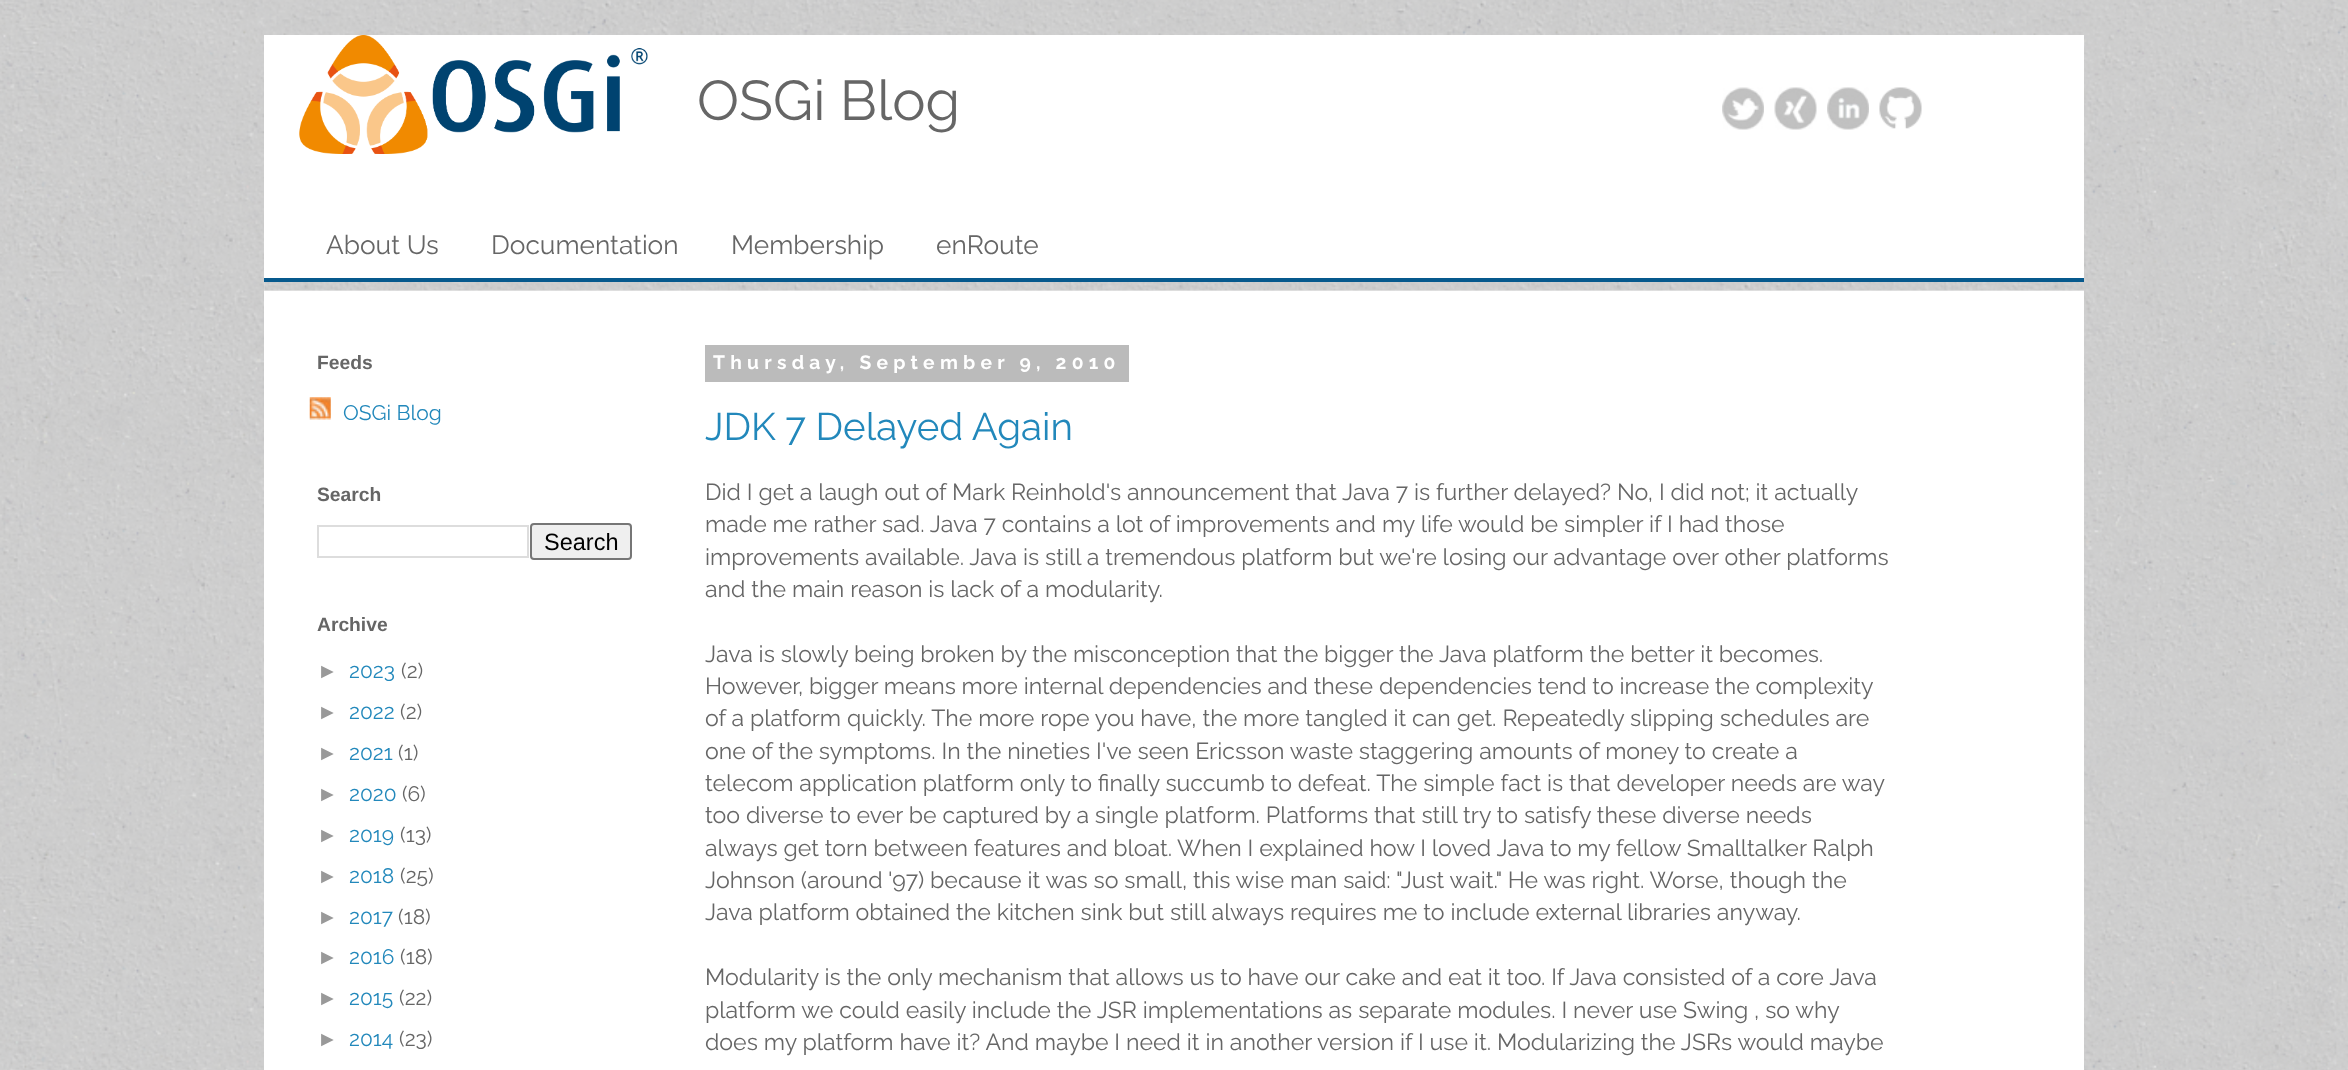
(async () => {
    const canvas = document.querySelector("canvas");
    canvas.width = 2348;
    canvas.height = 1070;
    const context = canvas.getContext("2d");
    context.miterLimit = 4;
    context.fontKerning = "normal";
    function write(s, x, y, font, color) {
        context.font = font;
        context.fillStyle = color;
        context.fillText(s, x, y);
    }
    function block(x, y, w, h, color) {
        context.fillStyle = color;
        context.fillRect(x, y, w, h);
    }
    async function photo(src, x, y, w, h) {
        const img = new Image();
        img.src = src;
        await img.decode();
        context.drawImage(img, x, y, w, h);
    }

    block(0, 0, 2348, 1070, "rgb(255, 255, 255)");
    await photo("media/1.png", 0, 0, 2348, 1070);
    block(264, 35, 1820, 1035, "rgb(255, 255, 255)");
    await photo("media/2.png", 299, 35, 349, 119);
    write("OSGi Blog", 697, 120, "56px Raleway", "rgb(102, 102, 102)");
    await photo("media/3.png", 1722, 87, 42, 43);
    await photo("media/4.png", 1774, 87, 43, 43);
    await photo("media/5.png", 1827, 87, 42, 43);
    await photo("media/6.png", 1879, 87, 43, 42);
    write("About Us", 326, 254, "26.25px Raleway", "rgb(102, 102, 102)");
    write("Documentation", 491, 254, "26.25px Raleway", "rgb(102, 102, 102)");
    write("Membership", 731, 254, "26.25px Raleway", "rgb(102, 102, 102)");
    write("enRoute", 936, 254, "26.25px Raleway", "rgb(102, 102, 102)");
    block(264, 282, 1820, 9, "rgb(238, 238, 238)");
    await photo("media/7.png", 264, 282, 1820, 9);
    block(264, 278, 1820, 4, "rgb(6, 89, 141)");
    write("Feeds", 317, 369, "bold 19.25px Liberation Sans", "rgb(102, 102, 102)");
    await photo("media/8.png", 309, 397, 22, 23);
    write("OSGi Blog", 343, 420, "21px Raleway", "rgb(34, 136, 187)");
    write("Search", 317, 501, "bold 19.25px Liberation Sans", "rgb(102, 102, 102)");
    context.strokeStyle = "rgb(221, 221, 221)";
    context.lineWidth = 2;
    context.strokeRect(318, 526, 210, 31);
    context.fillStyle = "rgb(239, 239, 239)";
    context.beginPath();
    context.roundRect(531, 524, 100, 35, 3);
    context.fill();
    context.strokeStyle = "rgb(118, 118, 118)";
    context.stroke();
    write("Search", 544, 550, "23.5px Liberation Sans", "rgb(0, 0, 0)");
    write("Archive", 317, 631, "bold 19.25px Liberation Sans", "rgb(102, 102, 102)");
    write("►", 317, 678, "21px Liberation Sans", "rgb(153, 153, 153)");
    write("2023", 349, 678, "21px Raleway", "rgb(34, 136, 187)");
    write("(2)", 401, 678, "21px Raleway", "rgb(102, 102, 102)");
    write("►", 317, 719, "21px Liberation Sans", "rgb(153, 153, 153)");
    write("2022", 349, 719, "21px Raleway", "rgb(34, 136, 187)");
    write("(2)", 400, 719, "21px Raleway", "rgb(102, 102, 102)");
    write("►", 317, 760, "21px Liberation Sans", "rgb(153, 153, 153)");
    write("2021", 349, 760, "21px Raleway", "rgb(34, 136, 187)");
    write("(1)", 398, 760, "21px Raleway", "rgb(102, 102, 102)");
    write("►", 317, 801, "21px Liberation Sans", "rgb(153, 153, 153)");
    write("2020", 349, 801, "21px Raleway", "rgb(34, 136, 187)");
    write("(6)", 402, 801, "21px Raleway", "rgb(102, 102, 102)");
    write("►", 317, 842, "21px Liberation Sans", "rgb(153, 153, 153)");
    write("2019", 349, 842, "21px Raleway", "rgb(34, 136, 187)");
    write("(13)", 400, 842, "21px Raleway", "rgb(102, 102, 102)");
    write("►", 317, 883, "21px Liberation Sans", "rgb(153, 153, 153)");
    write("2018", 349, 883, "21px Raleway", "rgb(34, 136, 187)");
    write("(25)", 400, 883, "21px Raleway", "rgb(102, 102, 102)");
    write("►", 317, 924, "21px Liberation Sans", "rgb(153, 153, 153)");
    write("2017", 349, 924, "21px Raleway", "rgb(34, 136, 187)");
    write("(18)", 398, 924, "21px Raleway", "rgb(102, 102, 102)");
    write("►", 317, 964, "21px Liberation Sans", "rgb(153, 153, 153)");
    write("2016", 349, 964, "21px Raleway", "rgb(34, 136, 187)");
    write("(18)", 400, 964, "21px Raleway", "rgb(102, 102, 102)");
    write("►", 317, 1005, "21px Liberation Sans", "rgb(153, 153, 153)");
    write("2015", 349, 1005, "21px Raleway", "rgb(34, 136, 187)");
    write("(22)", 399, 1005, "21px Raleway", "rgb(102, 102, 102)");
    write("►", 317, 1046, "21px Liberation Sans", "rgb(153, 153, 153)");
    write("2014", 349, 1046, "21px Raleway", "rgb(34, 136, 187)");
    write("(23)", 399, 1046, "21px Raleway", "rgb(102, 102, 102)");
    block(705, 345, 424, 37, "rgb(187, 187, 187)");
    context.letterSpacing = "5.25px";
    write("Thursday, September 9, 2010", 713, 369, "bold 19.25px Raleway", "rgb(255, 255, 255)");
    context.letterSpacing = "0px";
    write("JDK 7 Delayed Again", 705, 440, "38.5px Raleway", "rgb(34, 136, 187)");
    write("Did I get a laugh out of Mark Reinhold's announcement that Java 7 is further delayed? No, I did not; it actually", 705, 500, "23.1px Raleway", "rgb(102, 102, 102)");
    write("made me rather sad. Java 7 contains a lot of improvements and my life would be simpler if I had those", 705, 532, "23.1px Raleway", "rgb(102, 102, 102)");
    write("improvements available. Java is still a tremendous platform but we're losing our advantage over other platforms", 705, 565, "23.1px Raleway", "rgb(102, 102, 102)");
    write("and the main reason is lack of a modularity.", 705, 597, "23.1px Raleway", "rgb(102, 102, 102)");
    write("Java is slowly being broken by the misconception that the bigger the Java platform the better it becomes.", 705, 662, "23.1px Raleway", "rgb(102, 102, 102)");
    context.wordSpacing = "-0.1px";
    write("However, bigger means more internal dependencies and these dependencies tend to increase the complexity", 705, 694, "23.1px Raleway", "rgb(102, 102, 102)");
    context.wordSpacing = "0px";
    write("of a platform quickly. The more rope you have, the more tangled it can get. Repeatedly slipping schedules are", 705, 726, "23.1px Raleway", "rgb(102, 102, 102)");
    write("one of the symptoms. In the nineties I've seen Ericsson waste staggering amounts of money to create a", 705, 759, "23.1px Raleway", "rgb(102, 102, 102)");
    write("telecom application platform only to finally succumb to defeat. The simple fact is that developer needs are way", 705, 791, "23.1px Raleway", "rgb(102, 102, 102)");
    write("too diverse to ever be captured by a single platform. Platforms that still try to satisfy these diverse needs", 705, 823, "23.1px Raleway", "rgb(102, 102, 102)");
    write("always get torn between features and bloat. When I explained how I loved Java to my fellow Smalltalker Ralph", 705, 856, "23.1px Raleway", "rgb(102, 102, 102)");
    write("Johnson (around '97) because it was so small, this wise man said: \"Just wait.\" He was right. Worse, though the", 705, 888, "23.1px Raleway", "rgb(102, 102, 102)");
    write("Java platform obtained the kitchen sink but still always requires me to include external libraries anyway.", 705, 920, "23.1px Raleway", "rgb(102, 102, 102)");
    write("Modularity is the only mechanism that allows us to have our cake and eat it too. If Java consisted of a core Java", 705, 985, "23.1px Raleway", "rgb(102, 102, 102)");
    write("platform we could easily include the JSR implementations as separate modules. I never use Swing , so why", 705, 1018, "23.1px Raleway", "rgb(102, 102, 102)");
    write("does my platform have it? And maybe I need it in another version if I use it. Modularizing the JSRs would maybe", 705, 1050, "23.1px Raleway", "rgb(102, 102, 102)");
})();
